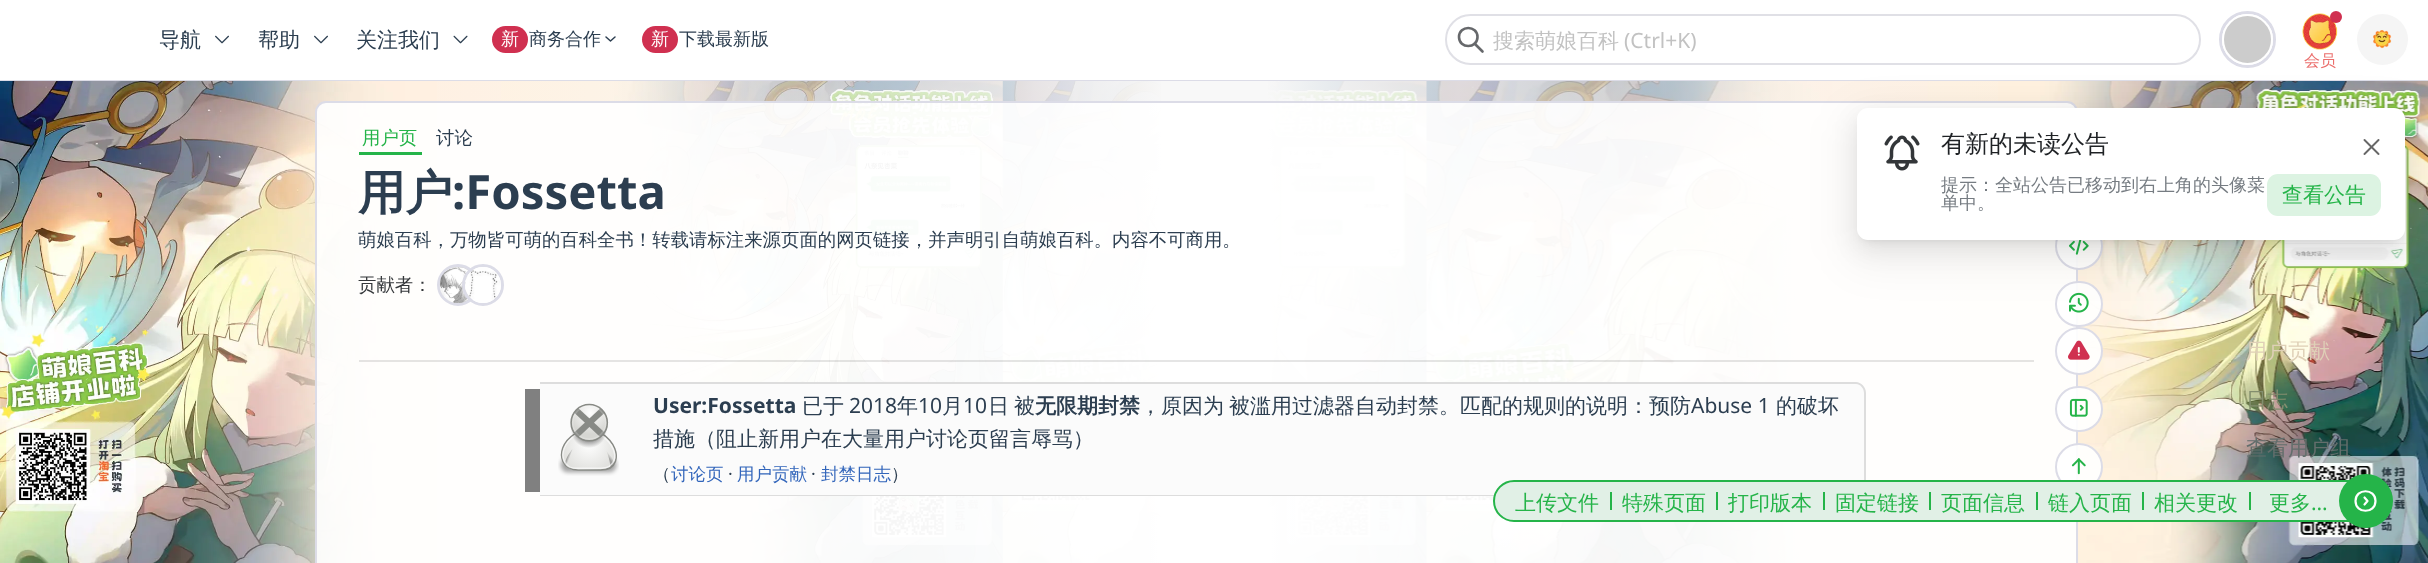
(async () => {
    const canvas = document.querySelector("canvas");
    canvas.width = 2428;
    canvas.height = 563;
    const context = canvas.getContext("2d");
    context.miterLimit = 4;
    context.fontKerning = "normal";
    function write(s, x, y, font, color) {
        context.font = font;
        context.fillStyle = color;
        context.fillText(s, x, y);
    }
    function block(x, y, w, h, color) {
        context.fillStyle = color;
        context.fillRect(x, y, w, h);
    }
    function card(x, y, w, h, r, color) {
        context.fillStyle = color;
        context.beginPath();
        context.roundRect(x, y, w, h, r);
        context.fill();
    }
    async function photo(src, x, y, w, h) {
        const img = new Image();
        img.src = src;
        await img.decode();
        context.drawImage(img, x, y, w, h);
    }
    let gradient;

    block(0, 0, 2428, 563, "rgb(255, 255, 255)");
    await photo("media/5.png", 0, 81, 1161, 482);
    await photo("media/6.png", 1268, 81, 1160, 482);
    gradient = context.createLinearGradient(0, 282, 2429, 282);
    gradient.addColorStop(0.15, "rgba(248, 248, 248, 0)");
    gradient.addColorStop(0.48, "rgb(248, 248, 248)");
    gradient.addColorStop(0.52, "rgb(248, 248, 248)");
    gradient.addColorStop(0.85, "rgba(248, 248, 248, 0)");
    context.fillStyle = gradient;
    context.fillRect(437, 81, 1561, 482);
    context.fillStyle = "rgba(255, 255, 255, 0.9)";
    context.beginPath();
    context.roundRect(316, 102, 1761, 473, 10);
    context.fill();
    context.strokeStyle = "rgb(220, 220, 231)";
    context.lineWidth = 2;
    context.stroke();
    context.beginPath();
    context.arc(2079, 246, 23, 0, Math.PI * 2);
    context.fill();
    context.stroke();
    await photo("media/10.png", 2069, 240, 20, 15);
    context.beginPath();
    context.roundRect(2056, 282, 46, 44, 22);
    context.fill();
    context.stroke();
    await photo("media/11.png", 2069, 292, 20, 21);
    context.beginPath();
    context.arc(2079, 351, 23, 0, Math.PI * 2);
    context.fill();
    context.stroke();
    context.fillStyle = "rgba(0, 0, 0, 0.05)";
    context.filter = "blur(21px)";
    context.beginPath();
    context.roundRect(1845, 110, 572, 156, 23);
    context.fill();
    context.filter = "none";
    context.fillStyle = "rgba(0, 0, 0, 0.08)";
    context.filter = "blur(12px)";
    context.beginPath();
    context.roundRect(1857, 117, 548, 132, 11);
    context.fill();
    context.filter = "none";
    context.fillStyle = "rgb(220, 220, 231)";
    context.beginPath();
    context.moveTo(0, 80);
    context.lineTo(0, 81);
    context.lineTo(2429, 81);
    context.lineTo(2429, 2);
    context.lineTo(2428, 2);
    context.lineTo(2428, 80);
    context.closePath();
    context.fill();
    write("导航", 159, 47, "500 21px WenQuanYi Zen Hei", "rgb(44, 62, 80)");
    await photo("media/1.png", 215, 35, 14, 9);
    write("帮助", 258, 47, "500 21px WenQuanYi Zen Hei", "rgb(44, 62, 80)");
    await photo("media/1.png", 314, 35, 14, 9);
    write("关注我们", 356, 47, "500 21px WenQuanYi Zen Hei", "rgb(44, 62, 80)");
    await photo("media/2.png", 453, 35, 15, 9);
    card(492, 26, 36, 27, 13.5, "rgb(208, 48, 80)");
    write("新", 501, 45, "500 18px WenQuanYi Zen Hei", "rgb(255, 255, 255)");
    write("商务合作", 529, 45, "500 18px WenQuanYi Zen Hei", "rgb(44, 62, 80)");
    context.beginPath();
    context.moveTo(606, 37);
    context.lineTo(610.5, 41);
    context.lineTo(615, 37);
    context.strokeStyle = "rgb(44, 62, 80)";
    context.lineWidth = 1.5;
    context.lineCap = "round";
    context.lineJoin = "round";
    context.stroke();
    card(642, 26, 36, 27, 13.5, "rgb(208, 48, 80)");
    write("新", 651, 45, "500 18px WenQuanYi Zen Hei", "rgb(255, 255, 255)");
    write("下载最新版", 679, 45, "500 18px WenQuanYi Zen Hei", "rgb(44, 62, 80)");
    context.beginPath();
    context.moveTo(1459, 37);
    context.bezierCurveTo(1459, 49, 1477.5, 49, 1477.5, 37);
    context.bezierCurveTo(1477.5, 25, 1459, 25, 1459, 37);
    context.moveTo(1482.5, 51.5);
    context.lineTo(1474.5, 43.5);
    context.strokeStyle = "rgb(102, 104, 107)";
    context.lineWidth = 2.6;
    context.stroke();
    context.beginPath();
    context.roundRect(1446, 15, 754, 49, 24.5);
    context.strokeStyle = "rgb(224, 224, 230)";
    context.lineWidth = 2;
    context.lineJoin = "miter";
    context.stroke();
    write("搜索萌娘百科", 1493, 48, "500 21px WenQuanYi Zen Hei", "rgb(194, 194, 194)");
    write("(Ctrl+K)", 1624, 48, "21px Noto Sans", "rgb(194, 194, 194)");
    context.beginPath();
    context.arc(2247.5, 39.5, 27, 0, Math.PI * 2);
    context.strokeStyle = "rgb(220, 220, 231)";
    context.lineWidth = 3;
    context.stroke();
    context.fillStyle = "rgb(204, 204, 204)";
    context.beginPath();
    context.arc(2247.5, 39.5, 24.5, 0, Math.PI * 2);
    context.fill();
    context.strokeStyle = "rgb(255, 255, 255)";
    context.lineWidth = 2;
    context.stroke();
    await photo("media/3.png", 2302, 13, 36, 37);
    context.fillStyle = "rgb(208, 48, 80)";
    context.beginPath();
    context.arc(2336, 17, 6, 0, Math.PI * 2);
    context.fill();
    write("会员", 2304, 66, "500 16px WenQuanYi Zen Hei", "rgb(235, 110, 108)");
    context.fillStyle = "rgb(245, 245, 245)";
    context.beginPath();
    context.arc(2382.5, 39.5, 25.5, 0, Math.PI * 2);
    context.fill();
    await photo("media/4.png", 2373, 30, 19, 19);
    block(359, 360, 1675, 2, "rgba(0, 0, 0, 0.1)");
    block(359, 152, 63, 3, "rgb(37, 180, 73)");
    write("用户页", 362, 144, "500 18.4px WenQuanYi Zen Hei", "rgb(37, 180, 73)");
    write("讨论", 436, 144, "500 18.4px WenQuanYi Zen Hei", "rgb(44, 62, 80)");
    write("用户", 358, 209, "bold 47.25px WenQuanYi Zen Hei", "rgb(44, 62, 80)");
    write(":Fossetta", 452, 209, "bold 47.25px Noto Sans", "rgb(44, 62, 80)");
    write("萌娘百科，万物皆可萌的百科全书！转载请标注来源页面的网页链接，并声明引自萌娘百科。内容不可商用。", 358, 246, "500 18.4px WenQuanYi Zen Hei", "rgb(44, 62, 80)");
    write("贡献者：", 358, 291, "500 18.4px WenQuanYi Zen Hei", "rgb(51, 54, 57)");
    context.fillStyle = "rgb(204, 204, 204)";
    context.beginPath();
    context.arc(458, 285, 19.5, 0, Math.PI * 2);
    context.fill();
    context.strokeStyle = "rgb(220, 220, 231)";
    context.lineWidth = 3;
    context.stroke();
    await photo("media/7.png", 439, 267, 32, 36);
    context.beginPath();
    context.arc(483, 285, 19.5, 0, Math.PI * 2);
    context.stroke();
    await photo("media/8.png", 465, 267, 36, 36);
    block(525, 389, 15, 103, "rgb(128, 128, 128)");
    context.fillStyle = "rgb(251, 251, 251)";
    context.beginPath();
    context.roundRect(540, 384, 1325, 111, [0, 9, 9, 0]);
    context.fill();
    context.fillStyle = "rgb(221, 221, 221)";
    context.beginPath();
    context.moveTo(540, 382);
    context.lineTo(1856, 382);
    context.bezierCurveTo(1861, 382, 1866, 387, 1866, 393);
    context.lineTo(1866, 486);
    context.bezierCurveTo(1866, 492, 1861, 496, 1856, 496);
    context.lineTo(540, 496);
    context.closePath();
    context.moveTo(540, 384);
    context.lineTo(1856, 384);
    context.bezierCurveTo(1860, 384, 1864, 388, 1864, 393);
    context.lineTo(1864, 486);
    context.bezierCurveTo(1864, 491, 1860, 495, 1856, 495);
    context.lineTo(540, 495);
    context.closePath();
    context.fill("evenodd");
    await photo("media/9.png", 558, 403, 61, 73);
    write("User:Fossetta", 653, 413, "bold 21px Noto Sans", "rgb(44, 62, 80)");
    write("已于", 802, 413, "500 21px WenQuanYi Zen Hei", "rgb(44, 62, 80)");
    write("2018", 849, 413, "21px Noto Sans", "rgb(44, 62, 80)");
    write("年", 897, 413, "500 21px WenQuanYi Zen Hei", "rgb(44, 62, 80)");
    write("10", 918, 413, "21px Noto Sans", "rgb(44, 62, 80)");
    write("月", 942, 413, "500 21px WenQuanYi Zen Hei", "rgb(44, 62, 80)");
    write("10", 963, 413, "21px Noto Sans", "rgb(44, 62, 80)");
    write("日", 988, 413, "500 21px WenQuanYi Zen Hei", "rgb(44, 62, 80)");
    write("被", 1014, 413, "500 21px WenQuanYi Zen Hei", "rgb(44, 62, 80)");
    write("无限期封禁", 1035, 413, "bold 21px WenQuanYi Zen Hei", "rgb(44, 62, 80)");
    write("，原因为", 1140, 413, "500 21px WenQuanYi Zen Hei", "rgb(44, 62, 80)");
    write("被滥用过滤器自动封禁。匹配的规则的说明：预防", 1229, 413, "500 21px WenQuanYi Zen Hei", "rgb(44, 62, 80)");
    write("Abuse 1", 1691, 413, "21px Noto Sans", "rgb(44, 62, 80)");
    write("的破坏", 1776, 413, "500 21px WenQuanYi Zen Hei", "rgb(44, 62, 80)");
    write("措施（阻止新用户在大量用户讨论页留言辱骂）", 653, 446, "500 21px WenQuanYi Zen Hei", "rgb(44, 62, 80)");
    write("（", 653, 480, "500 17.5px WenQuanYi Zen Hei", "rgb(44, 62, 80)");
    write("讨论页", 671, 480, "500 17.5px WenQuanYi Zen Hei", "rgb(51, 102, 187)");
    write("·", 728, 480, "17.5px Noto Sans", "rgb(44, 62, 80)");
    write("用户贡献", 737, 480, "500 17.5px WenQuanYi Zen Hei", "rgb(51, 102, 187)");
    write("·", 811, 480, "17.5px Noto Sans", "rgb(44, 62, 80)");
    write("封禁日志", 821, 480, "500 17.5px WenQuanYi Zen Hei", "rgb(51, 102, 187)");
    write("）", 891, 480, "500 17.5px WenQuanYi Zen Hei", "rgb(44, 62, 80)");
    await photo("media/12.png", 2068, 340, 22, 20);
    context.fillStyle = "rgba(255, 255, 255, 0.9)";
    context.beginPath();
    context.roundRect(2056, 387, 46, 44, 22);
    context.fill();
    context.lineWidth = 2;
    context.stroke();
    await photo("media/13.png", 2069, 398, 19, 19);
    context.beginPath();
    context.arc(2079, 467, 23, 0, Math.PI * 2);
    context.fill();
    context.stroke();
    await photo("media/14.png", 2071, 458, 15, 17);
    context.fillStyle = "rgb(225, 240, 230)";
    context.beginPath();
    context.roundRect(1494, 481, 871, 40, [20, 0, 0, 20]);
    context.fill();
    context.strokeStyle = "rgb(37, 180, 73)";
    context.stroke();
    block(1610, 492, 2, 18, "rgb(37, 180, 73)");
    write("上传文件", 1515, 510, "500 21px WenQuanYi Zen Hei", "rgb(37, 180, 73)");
    block(1716, 492, 2, 18, "rgb(37, 180, 73)");
    write("特殊页面", 1622, 510, "500 21px WenQuanYi Zen Hei", "rgb(37, 180, 73)");
    block(1823, 492, 2, 18, "rgb(37, 180, 73)");
    write("打印版本", 1728, 510, "500 21px WenQuanYi Zen Hei", "rgb(37, 180, 73)");
    block(1929, 492, 2, 18, "rgb(37, 180, 73)");
    write("固定链接", 1835, 510, "500 21px WenQuanYi Zen Hei", "rgb(37, 180, 73)");
    block(2036, 492, 2, 18, "rgb(37, 180, 73)");
    write("页面信息", 1941, 510, "500 21px WenQuanYi Zen Hei", "rgb(37, 180, 73)");
    block(2142, 492, 2, 18, "rgb(37, 180, 73)");
    write("链入页面", 2048, 510, "500 21px WenQuanYi Zen Hei", "rgb(37, 180, 73)");
    block(2249, 492, 2, 18, "rgb(37, 180, 73)");
    write("相关更改", 2154, 510, "500 21px WenQuanYi Zen Hei", "rgb(37, 180, 73)");
    write("用户贡献", 2246, 358, "500 21px WenQuanYi Zen Hei", "rgb(223, 208, 183)");
    write("日志", 2246, 407, "500 21px WenQuanYi Zen Hei", "rgb(131, 142, 110)");
    write("查看用户组", 2246, 455, "500 21px WenQuanYi Zen Hei", "rgb(99, 110, 108)");
    write("更多", 2269, 510, "500 21px WenQuanYi Zen Hei", "rgb(37, 180, 73)");
    write("…", 2311, 510, "21px Noto Sans", "rgb(37, 180, 73)");
    context.beginPath();
    context.arc(2366, 501, 27, 0, Math.PI * 2);
    context.fill();
    context.beginPath();
    context.moveTo(2364.5, 497.5);
    context.lineTo(2367.5, 501);
    context.lineTo(2364.5, 504.5);
    context.moveTo(2355.5, 501);
    context.bezierCurveTo(2355.5, 514, 2375.5, 514, 2375.5, 501);
    context.bezierCurveTo(2375.5, 488, 2355.5, 488, 2355.5, 501);
    context.closePath();
    context.strokeStyle = "rgb(255, 255, 255)";
    context.lineWidth = 2.2;
    context.lineJoin = "round";
    context.stroke();
    context.fillStyle = "rgba(0, 0, 0, 0.12)";
    context.filter = "blur(4.5px)";
    context.beginPath();
    context.roundRect(1863, 119, 536, 120, 5);
    context.fill();
    context.filter = "none";
    card(1857, 108, 548, 132, 11, "rgb(255, 255, 255)");
    await photo("media/15.png", 1884, 135, 36, 36);
    write("有新的未读公告", 1941, 152, "500 24px WenQuanYi Zen Hei", "rgb(31, 34, 37)");
    write("提示：全站公告已移动到右上角的头像菜", 1941, 191, "500 18px WenQuanYi Zen Hei", "rgb(118, 124, 130)");
    write("单中。", 1941, 209, "500 18px WenQuanYi Zen Hei", "rgb(118, 124, 130)");
    card(2267, 174, 114, 42, 11, "rgb(220, 243, 226)");
    write("查看公告", 2282, 202, "500 21px WenQuanYi Zen Hei", "rgb(37, 180, 73)");
    await photo("media/16.png", 2363, 139, 17, 16);
})();
